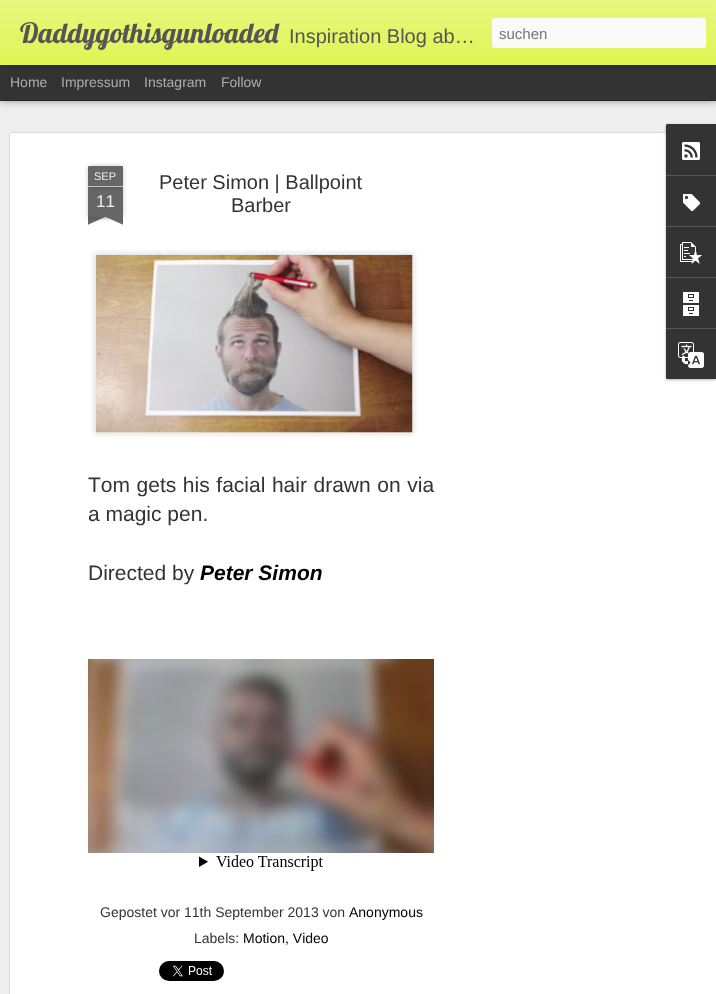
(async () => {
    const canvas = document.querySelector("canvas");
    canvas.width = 716;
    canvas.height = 994;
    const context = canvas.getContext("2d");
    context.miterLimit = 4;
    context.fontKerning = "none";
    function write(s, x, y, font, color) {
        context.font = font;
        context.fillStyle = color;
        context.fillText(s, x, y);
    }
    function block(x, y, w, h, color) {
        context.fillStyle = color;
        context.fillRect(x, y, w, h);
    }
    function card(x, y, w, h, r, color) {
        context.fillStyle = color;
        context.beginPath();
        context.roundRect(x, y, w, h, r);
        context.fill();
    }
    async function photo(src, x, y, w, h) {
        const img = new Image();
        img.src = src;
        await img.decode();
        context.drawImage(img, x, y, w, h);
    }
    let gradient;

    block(0, 0, 716, 994, "rgb(51, 51, 51)");
    block(0, 101, 716, 893, "rgb(238, 238, 238)");
    context.fillStyle = "rgba(0, 0, 0, 0.5)";
    context.filter = "blur(4px)";
    context.beginPath();
    context.rect(0, 65, 716, 35);
    context.fill();
    context.filter = "none";
    block(0, 65, 716, 35, "rgb(51, 51, 51)");
    context.fillStyle = "rgba(0, 0, 0, 0.3)";
    context.filter = "blur(2.5px)";
    context.beginPath();
    context.rect(0, 0, 716, 65);
    context.fill();
    context.filter = "none";
    gradient = context.createLinearGradient(0, 0, 0, 65);
    gradient.addColorStop(0, "rgb(231, 247, 128)");
    gradient.addColorStop(1, "rgb(222, 245, 82)");
    context.fillStyle = gradient;
    context.fillRect(0, 0, 716, 65);
    write("Daddygothisgunloaded", 20, 43, "28px Lobster", "rgb(85, 85, 85)");
    write("Inspiration Blog ab…", 289, 43, "20px Liberation Sans", "rgb(85, 85, 85)");
    card(492, 18, 214, 30, 3, "rgb(250, 250, 250)");
    write("suchen", 499, 39, "15px Liberation Sans", "rgb(117, 117, 117)");
    write("Home", 10, 87, "14px Liberation Sans", "rgb(173, 173, 173)");
    write("Impressum", 61, 87, "14px Liberation Sans", "rgb(173, 173, 173)");
    write("Instagram", 144, 87, "14px Liberation Sans", "rgb(173, 173, 173)");
    write("Follow", 221, 87, "14px Liberation Sans", "rgb(173, 173, 173)");
    block(8, 131, 708, 863, "rgb(255, 255, 255)");
    await photo("media/1.png", 8, 131, 658, 863);
    context.fillStyle = "rgba(0, 0, 0, 0.2)";
    context.filter = "blur(2.5px)";
    context.beginPath();
    context.rect(88, 187, 35, 30);
    context.fill();
    context.filter = "none";
    block(88, 187, 35, 30, "rgb(102, 102, 102)");
    context.fillStyle = "rgba(0, 0, 0, 0.2)";
    context.filter = "blur(2.5px)";
    context.beginPath();
    context.roundRect(88, 166, 35, 21, 1);
    context.fill();
    context.filter = "none";
    context.fillStyle = "rgb(102, 102, 102)";
    context.beginPath();
    context.roundRect(88, 166, 35, 21, [1, 1, 0, 0]);
    context.fill();
    block(88, 186, 35, 1, "rgb(194, 194, 194)");
    write("SEP", 94, 180, "11px Liberation Sans", "rgb(238, 238, 238)");
    write("11", 96, 207, "17px Liberation Sans", "rgb(238, 238, 238)");
    context.save();
    context.beginPath();
    context.rect(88, 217, 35, 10);
    context.clip();
    context.fillStyle = "rgba(0, 0, 0, 0.2)";
    context.filter = "blur(2.5px)";
    context.beginPath();
    context.rect(79, 207, 50, 10);
    context.fill();
    context.filter = "none";
    context.restore();
    context.save();
    context.beginPath();
    context.rect(88, 217, 35, 10);
    context.clip();
    context.fillStyle = "rgb(102, 102, 102)";
    context.beginPath();
    context.moveTo(79, 218);
    context.lineTo(125, 197);
    context.lineTo(129, 206);
    context.lineTo(83, 227);
    context.closePath();
    context.fill();
    context.restore();
    context.save();
    context.beginPath();
    context.rect(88, 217, 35, 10);
    context.clip();
    context.fillStyle = "rgba(0, 0, 0, 0.2)";
    context.filter = "blur(2.5px)";
    context.beginPath();
    context.rect(82, 207, 50, 10);
    context.fill();
    context.filter = "none";
    context.restore();
    context.save();
    context.beginPath();
    context.rect(88, 217, 35, 10);
    context.clip();
    context.fillStyle = "rgb(102, 102, 102)";
    context.beginPath();
    context.moveTo(86, 197);
    context.lineTo(132, 218);
    context.lineTo(128, 227);
    context.lineTo(82, 206);
    context.closePath();
    context.fill();
    context.restore();
    write("Peter Simon | Ballpoint", 159, 189, "20px Liberation Sans", "rgb(51, 51, 51)");
    write("Barber", 231, 212, "20px Liberation Sans", "rgb(51, 51, 51)");
    await photo("media/2.png", 91, 250, 326, 187);
    await photo("media/3.png", 95, 254, 318, 179);
    context.wordSpacing = "0.75px";
    write("Tom gets his facial hair drawn on via", 88, 492, "21px Liberation Sans", "rgb(51, 51, 51)");
    context.wordSpacing = "0px";
    write("a magic pen.", 88, 521, "21px Liberation Sans", "rgb(51, 51, 51)");
    write("Directed by", 88, 580, "21px Liberation Sans", "rgb(51, 51, 51)");
    write("Peter Simon", 200, 580, "italic bold 21px Liberation Sans", "rgb(0, 0, 0)");
    await photo("media/4.png", 88, 659, 346, 212);
    write("Gepostet vor 11th September 2013 von", 100, 917, "14px Liberation Sans", "rgb(51, 51, 51)");
    write("Anonymous", 349, 917, "14px Liberation Sans", "rgb(0, 0, 0)");
    write("Labels:", 194, 943, "14px Liberation Sans", "rgb(51, 51, 51)");
    write("Motion, Video", 243, 943, "14px Liberation Sans", "rgb(0, 0, 0)");
    await photo("media/5.png", 159, 961, 65, 20);
    context.fillStyle = "rgba(0, 0, 0, 0.3)";
    context.filter = "blur(1.5px)";
    context.beginPath();
    context.roundRect(666, 125, 50, 255, 2);
    context.fill();
    context.filter = "none";
    context.fillStyle = "rgb(51, 51, 51)";
    context.beginPath();
    context.roundRect(666, 124, 50, 255, [2, 0, 0, 2]);
    context.fill();
    context.beginPath();
    context.roundRect(666, 124, 50, 51, [2, 0, 0, 0]);
    context.fill();
    await photo("media/6.png", 682, 142, 18, 18);
    block(666, 175, 50, 1, "rgb(88, 88, 88)");
    await photo("media/7.png", 683, 194, 17, 17);
    block(666, 226, 50, 1, "rgb(88, 88, 88)");
    await photo("media/8.png", 680, 242, 22, 22);
    block(666, 277, 50, 1, "rgb(88, 88, 88)");
    await photo("media/9.png", 683, 292, 16, 24);
    context.fillStyle = "rgb(51, 51, 51)";
    context.beginPath();
    context.roundRect(666, 328, 50, 51, [0, 0, 0, 2]);
    context.fill();
    block(666, 328, 50, 1, "rgb(88, 88, 88)");
    await photo("media/10.png", 678, 342, 26, 26);
})();
